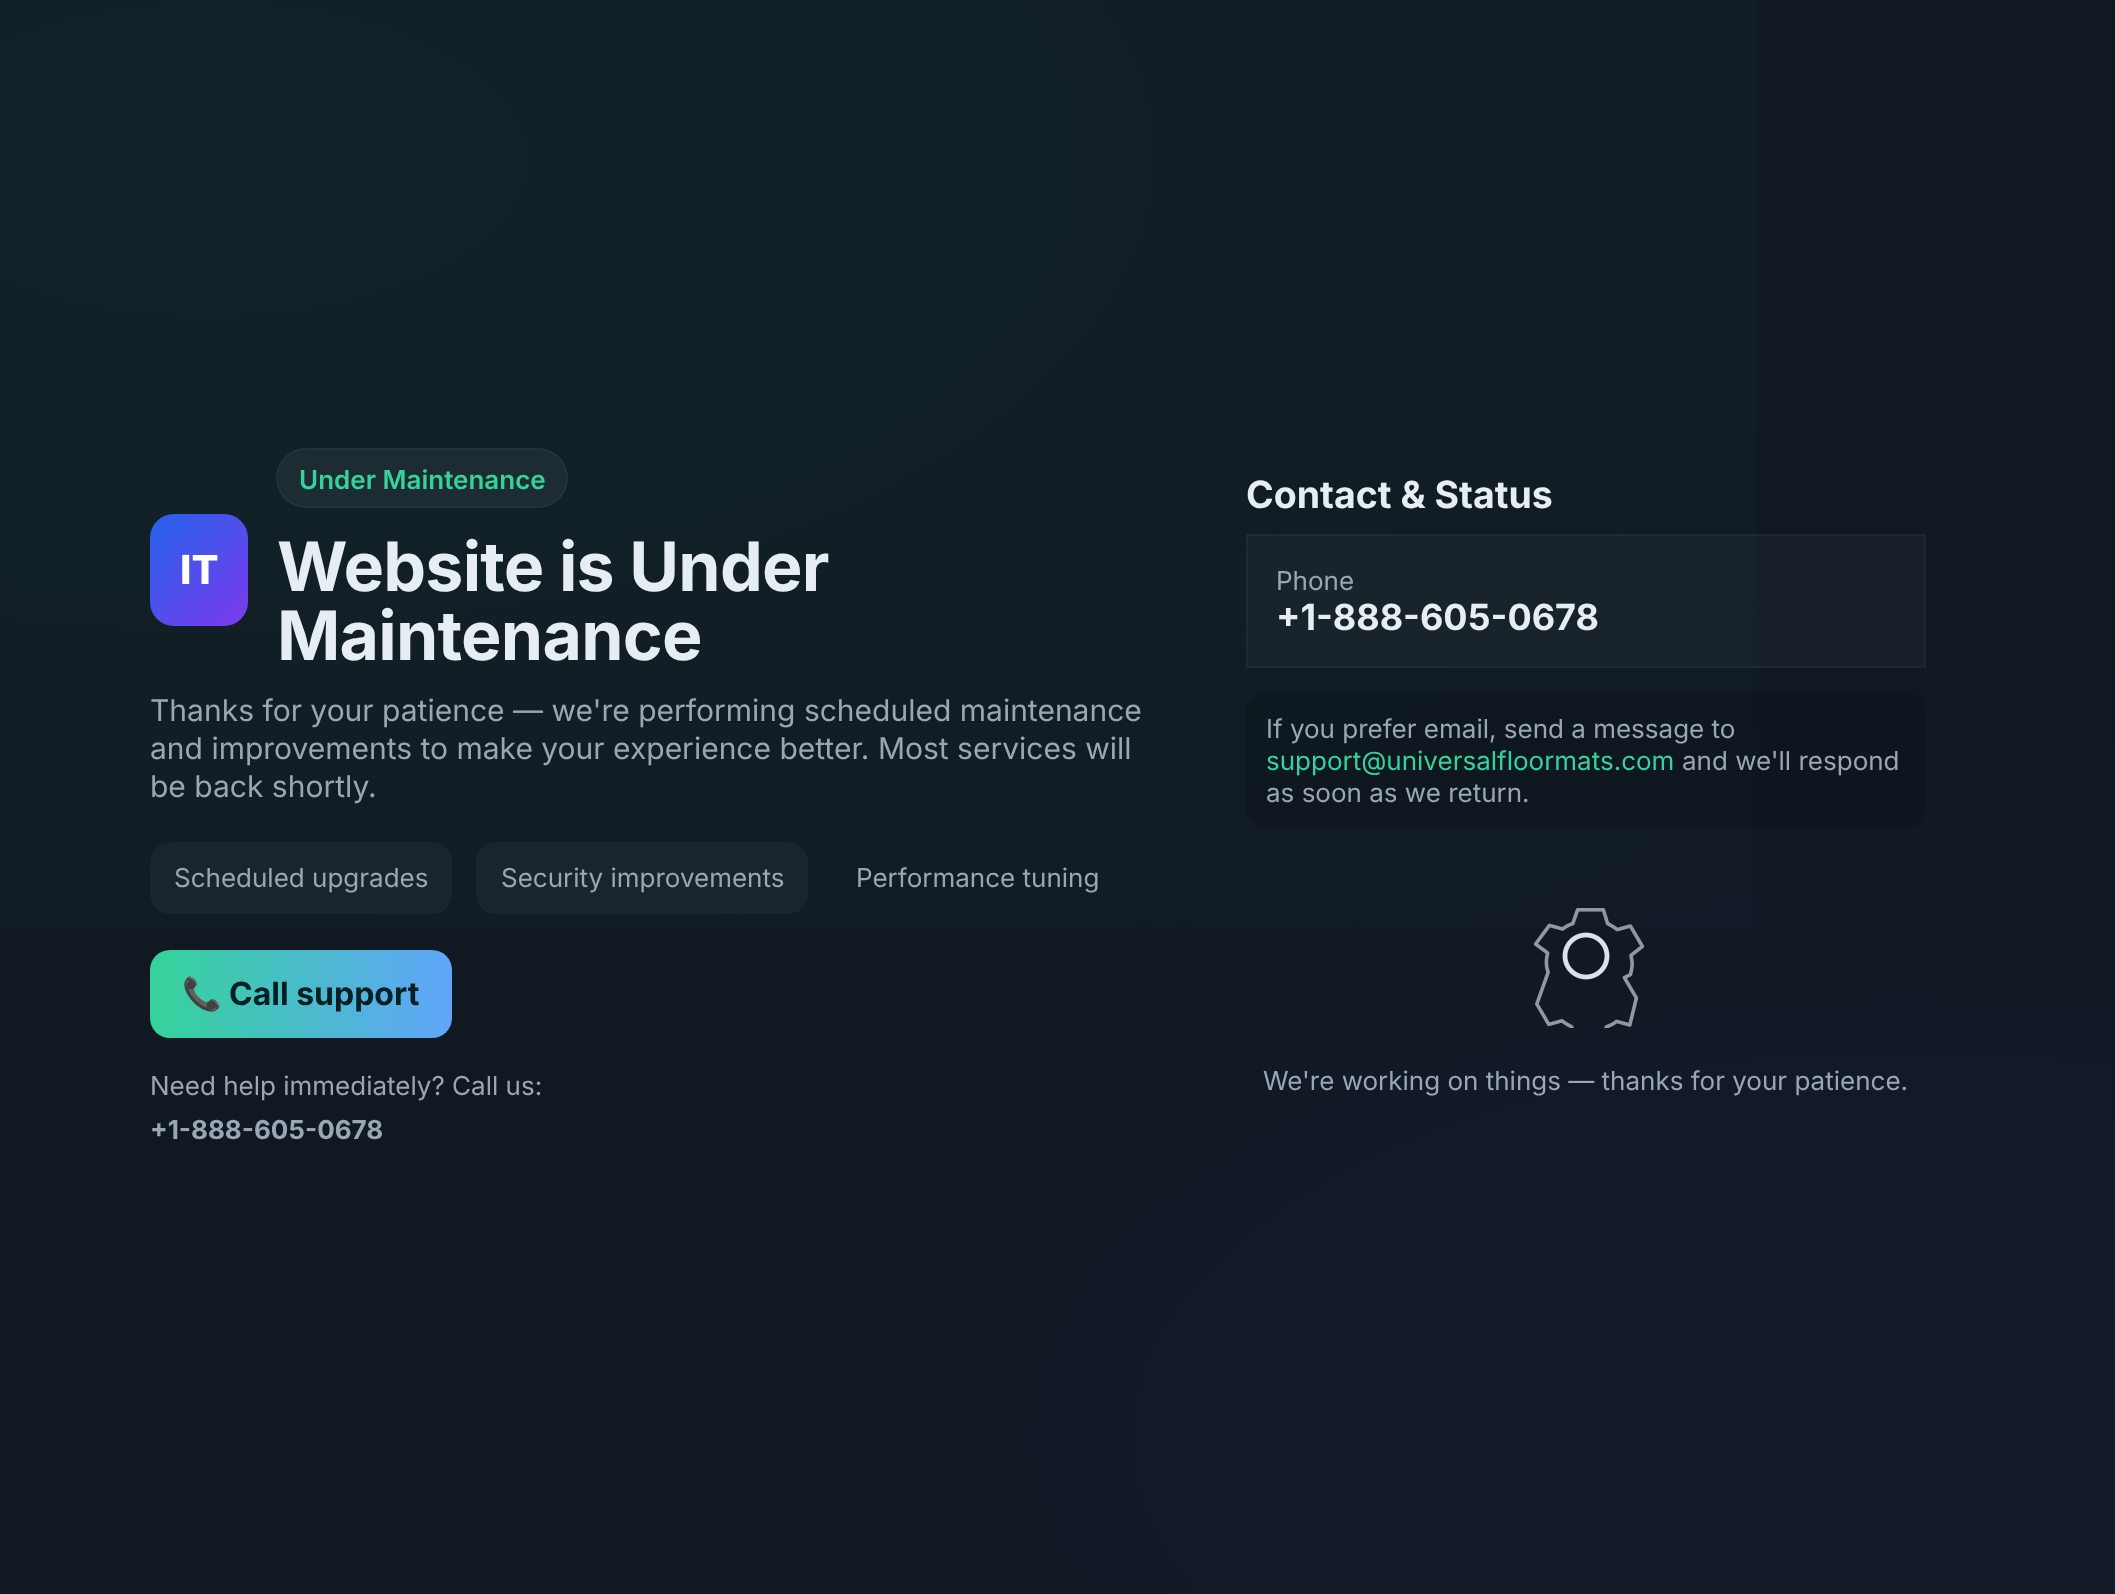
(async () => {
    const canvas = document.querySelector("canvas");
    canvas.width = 2115;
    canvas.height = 1594;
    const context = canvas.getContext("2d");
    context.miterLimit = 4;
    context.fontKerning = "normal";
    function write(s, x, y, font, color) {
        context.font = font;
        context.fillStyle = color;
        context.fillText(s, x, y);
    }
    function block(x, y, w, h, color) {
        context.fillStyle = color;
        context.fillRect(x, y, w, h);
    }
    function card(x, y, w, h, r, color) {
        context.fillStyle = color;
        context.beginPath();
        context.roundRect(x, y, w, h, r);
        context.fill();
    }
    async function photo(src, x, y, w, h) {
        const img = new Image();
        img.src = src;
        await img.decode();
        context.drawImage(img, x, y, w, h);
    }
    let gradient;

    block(0, 0, 2115, 1594, "rgb(255, 255, 255)");
    gradient = context.createRadialGradient(1904, 2870, 0, 1904, 2870, 1600);
    gradient.addColorStop(0, "rgb(19, 27, 42)");
    gradient.addColorStop(1, "rgb(16, 24, 34)");
    context.fillStyle = gradient;
    context.beginPath();
    context.rect(0, 0, 2115, 1594);
    context.save();
    context.clip();
    context.scale(1, 800 / 1600);
    context.fillRect(0, 0, 2115, 3188);
    context.restore();
    gradient = context.createRadialGradient(212, 318, 0, 212, 318, 2400);
    gradient.addColorStop(0, "rgba(52, 211, 153, 0.06)");
    gradient.addColorStop(1, "rgba(52, 211, 153, 0)");
    context.fillStyle = gradient;
    context.beginPath();
    context.rect(0, 0, 1757, 927);
    context.save();
    context.clip();
    context.scale(1, 1200 / 2400);
    context.fillRect(0, 0, 2115, 3188);
    context.restore();
    gradient = context.createLinearGradient(147, 518, 252, 623);
    gradient.addColorStop(0, "rgb(37, 99, 235)");
    gradient.addColorStop(1, "rgb(124, 58, 237)");
    context.fillStyle = gradient;
    context.beginPath();
    context.roundRect(150, 514, 98, 112, 24);
    context.fill();
    write("IT", 180, 584, "800 40px Inter", "rgb(255, 255, 255)");
    card(276, 448, 292, 60, 30, "rgb(29, 43, 50)");
    context.beginPath();
    context.roundRect(277, 449, 290, 58, 29);
    context.strokeStyle = "rgba(52, 211, 153, 0.07)";
    context.lineWidth = 2;
    context.stroke();
    write("Under Maintenance", 299, 489, "600 26px Inter", "rgb(52, 211, 153)");
    context.letterSpacing = "-0.75px";
    write("Website is Under", 277, 591, "bold 68px Inter", "rgb(230, 238, 243)");
    write("Maintenance", 277, 660, "bold 68px Inter", "rgb(230, 238, 243)");
    context.letterSpacing = "0px";
    write("Thanks for your patience — we're performing scheduled maintenance", 150, 721, "30px Inter", "rgb(154, 167, 178)");
    write("and improvements to make your experience better. Most services will", 150, 759, "30px Inter", "rgb(154, 167, 178)");
    write("be back shortly.", 150, 797, "30px Inter", "rgb(154, 167, 178)");
    card(150, 842, 302, 72, 20, "rgb(25, 36, 45)");
    write("Scheduled upgrades", 174, 887, "26px Inter", "rgb(154, 167, 178)");
    card(476, 842, 332, 72, 20, "rgb(25, 36, 44)");
    write("Security improvements", 501, 887, "26px Inter", "rgb(154, 167, 178)");
    write("Performance tuning", 856, 887, "26px Inter", "rgb(154, 167, 178)");
    gradient = context.createLinearGradient(150, 994, 452, 994);
    gradient.addColorStop(0, "rgb(52, 211, 153)");
    gradient.addColorStop(1, "rgb(96, 165, 250)");
    context.fillStyle = gradient;
    context.beginPath();
    context.roundRect(150, 950, 302, 88, 20);
    context.fill();
    write("📞", 182, 1005, "bold 32px Noto Color Emoji", "rgb(4, 32, 36)");
    write("Call support", 229, 1005, "bold 32px Inter", "rgb(4, 32, 36)");
    write("Need help immediately? Call us:", 150, 1095, "26px Inter", "rgb(154, 167, 178)");
    write("+1-888-605-0678", 150, 1139, "bold 26px Inter", "rgb(154, 167, 178)");
    write("Contact & Status", 1246, 508, "bold 37.5px Inter", "rgb(230, 238, 243)");
    block(1246, 534, 680, 134, "rgba(255, 255, 255, 0.03)");
    context.strokeStyle = "rgba(255, 255, 255, 0.03)";
    context.strokeRect(1247, 535, 678, 132);
    write("Phone", 1276, 590, "26px Inter", "rgb(154, 167, 178)");
    write("+1-888-605-0678", 1276, 630, "bold 36px Inter", "rgb(230, 238, 243)");
    card(1246, 692, 680, 136, 20, "rgba(0, 0, 0, 0.12)");
    write("If you prefer email, send a message to", 1266, 738, "26px Inter", "rgb(154, 167, 178)");
    write("support@universalfloormats.com", 1266, 770, "26px Inter", "rgb(52, 211, 153)");
    write("and we'll respond", 1682, 770, "26px Inter", "rgb(154, 167, 178)");
    write("as soon as we return.", 1266, 802, "26px Inter", "rgb(154, 167, 178)");
    await photo("media/1.png", 1533, 908, 112, 120);
    write("We're working on things — thanks for your patience.", 1263, 1090, "26px Inter", "rgb(154, 167, 178)");
})();
